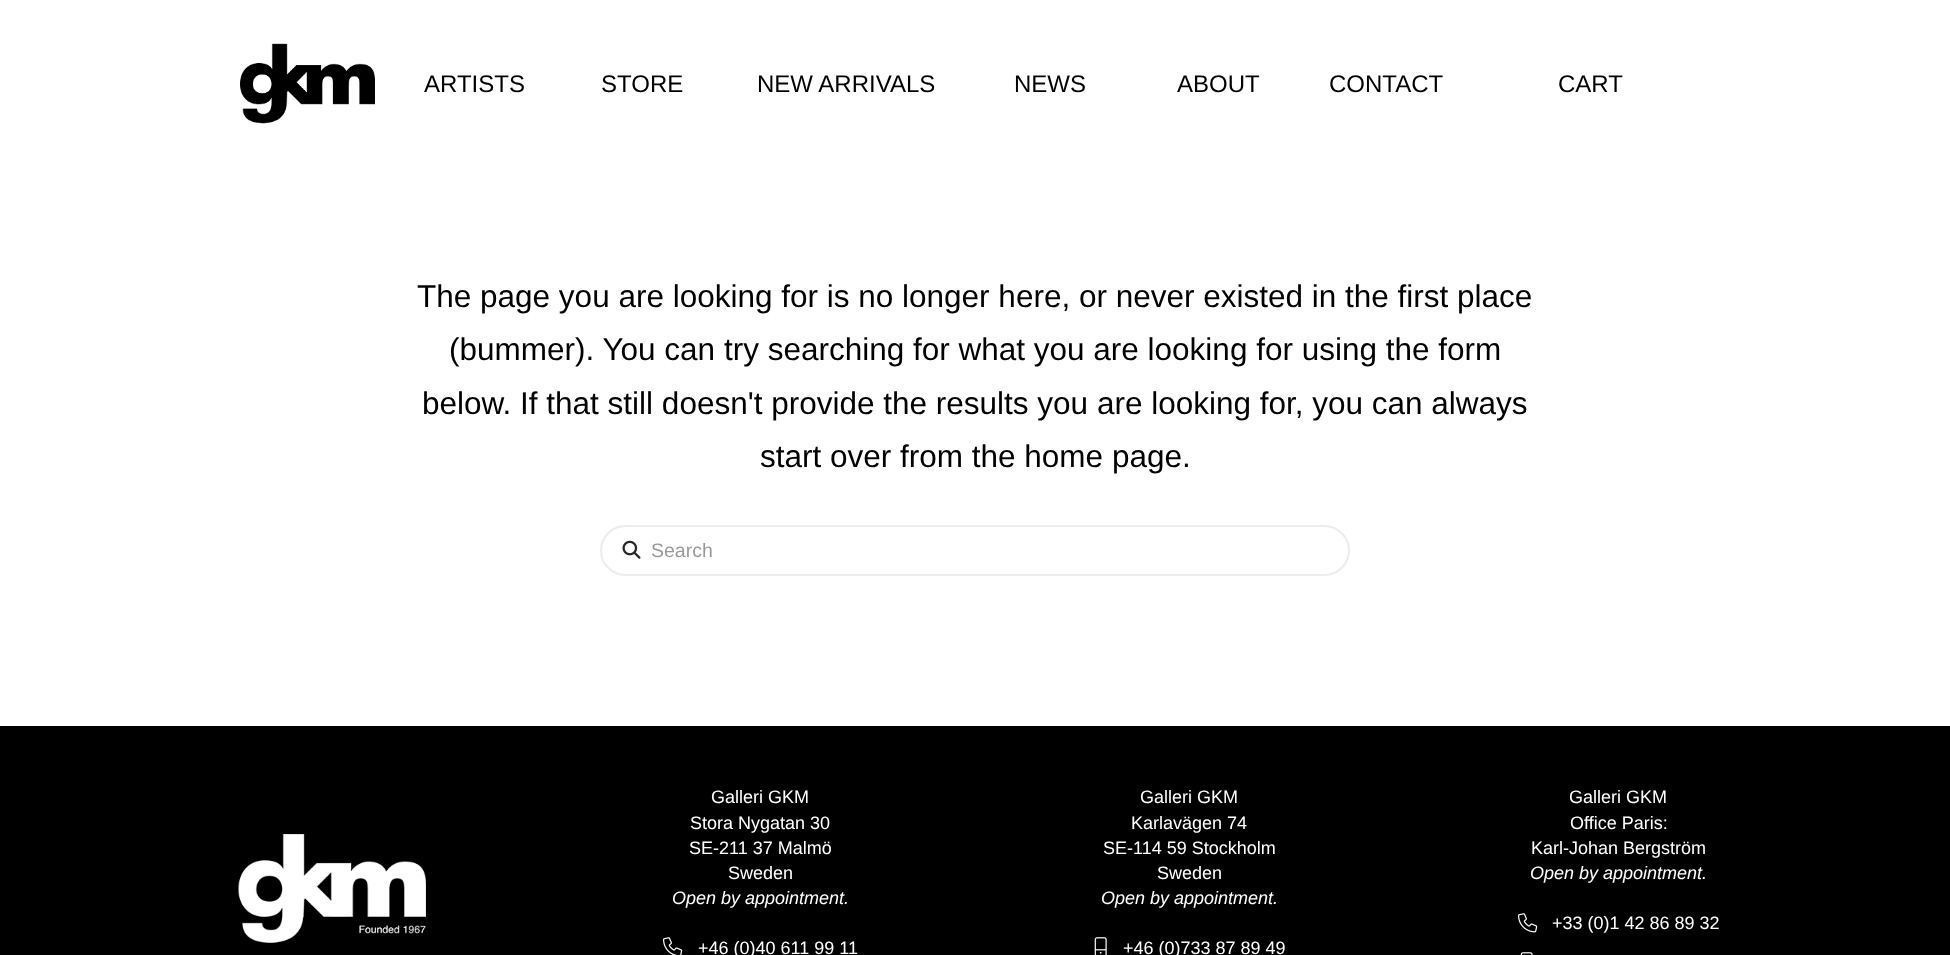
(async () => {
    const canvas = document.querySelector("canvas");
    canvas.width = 1950;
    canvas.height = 955;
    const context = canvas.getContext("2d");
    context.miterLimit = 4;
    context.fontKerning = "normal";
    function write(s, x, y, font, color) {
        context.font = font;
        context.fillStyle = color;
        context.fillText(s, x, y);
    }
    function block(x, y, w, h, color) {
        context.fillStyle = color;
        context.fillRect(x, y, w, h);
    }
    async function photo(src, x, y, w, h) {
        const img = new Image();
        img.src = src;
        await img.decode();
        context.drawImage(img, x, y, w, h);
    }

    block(0, 0, 1950, 955, "rgb(255, 255, 255)");
    await photo("media/1.png", 240, 43, 135, 81);
    write("ARTISTS", 424, 92, "24px Liberation Sans", "rgb(0, 0, 0)");
    write("STORE", 601, 92, "24px Liberation Sans", "rgb(0, 0, 0)");
    write("NEW ARRIVALS", 757, 92, "24px Liberation Sans", "rgb(0, 0, 0)");
    write("NEWS", 1014, 92, "24px Liberation Sans", "rgb(0, 0, 0)");
    write("ABOUT", 1177, 92, "24px Liberation Sans", "rgb(0, 0, 0)");
    write("CONTACT", 1329, 92, "24px Liberation Sans", "rgb(0, 0, 0)");
    write("CART", 1558, 92, "24px Liberation Sans", "rgb(0, 0, 0)");
    write("The page you are looking for is no longer here, or never existed in the first place", 417, 307, "31.5px Liberation Sans", "rgb(0, 0, 0)");
    write("(bummer). You can try searching for what you are looking for using the form", 449, 360, "31.5px Liberation Sans", "rgb(0, 0, 0)");
    write("below. If that still doesn't provide the results you are looking for, you can always", 422, 414, "31.5px Liberation Sans", "rgb(0, 0, 0)");
    write("start over from the home page.", 760, 467, "31.5px Liberation Sans", "rgb(0, 0, 0)");
    context.beginPath();
    context.roundRect(601, 526, 748, 49, 24.5);
    context.strokeStyle = "rgb(236, 236, 236)";
    context.lineWidth = 2;
    context.stroke();
    await photo("media/2.png", 622, 540, 19, 19);
    write("Search", 651, 557, "19.5px Liberation Sans", "rgb(153, 153, 153)");
    block(0, 726, 1950, 229, "rgb(0, 0, 0)");
    await photo("media/3.png", 238, 834, 188, 109);
    write("Galleri GKM", 711, 803, "18px Liberation Sans", "rgb(255, 255, 255)");
    write("Stora Nygatan 30", 690, 829, "18px Liberation Sans", "rgb(255, 255, 255)");
    write("SE-211 37 Malmö", 689, 854, "18px Liberation Sans", "rgb(255, 255, 255)");
    write("Sweden", 728, 879, "18px Liberation Sans", "rgb(255, 255, 255)");
    write("Open by appointment.", 672, 904, "italic 18px Liberation Sans", "rgb(255, 255, 255)");
    await photo("media/4.png", 663, 937, 20, 18);
    write("+46 (0)40 611 99 11", 698, 954, "18px Liberation Sans", "rgb(255, 255, 255)");
    write("Galleri GKM", 1140, 803, "18px Liberation Sans", "rgb(255, 255, 255)");
    write("Karlavägen 74", 1131, 829, "18px Liberation Sans", "rgb(255, 255, 255)");
    write("SE-114 59 Stockholm", 1103, 854, "18px Liberation Sans", "rgb(255, 255, 255)");
    write("Sweden", 1157, 879, "18px Liberation Sans", "rgb(255, 255, 255)");
    write("Open by appointment.", 1101, 904, "italic 18px Liberation Sans", "rgb(255, 255, 255)");
    await photo("media/5.png", 1094, 937, 13, 18);
    write("+46 (0)733 87 89 49", 1123, 954, "18px Liberation Sans", "rgb(255, 255, 255)");
    write("Galleri GKM", 1569, 803, "18px Liberation Sans", "rgb(255, 255, 255)");
    write("Office Paris:", 1570, 829, "18px Liberation Sans", "rgb(255, 255, 255)");
    write("Karl-Johan Bergström", 1531, 854, "18px Liberation Sans", "rgb(255, 255, 255)");
    write("Open by appointment.", 1530, 879, "italic 18px Liberation Sans", "rgb(255, 255, 255)");
    await photo("media/6.png", 1518, 913, 20, 20);
    write("+33 (0)1 42 86 89 32", 1552, 929, "18px Liberation Sans", "rgb(255, 255, 255)");
    await photo("media/7.png", 1520, 952, 13, 3);
})();
